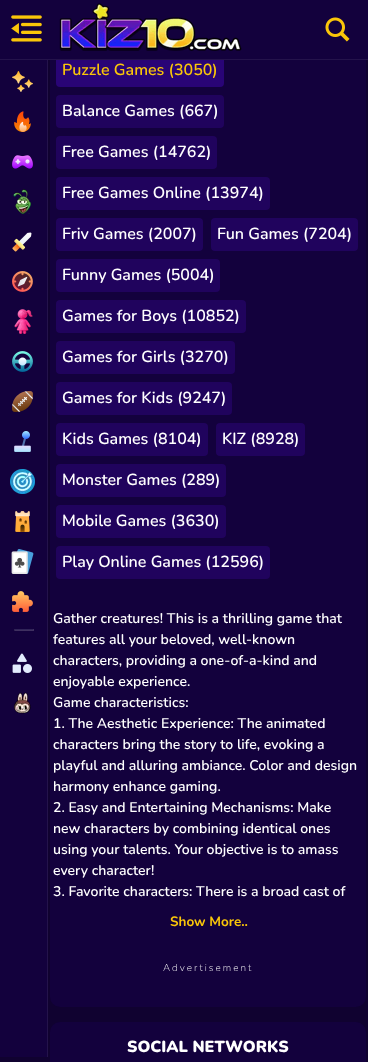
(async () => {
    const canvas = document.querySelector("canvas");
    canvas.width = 368;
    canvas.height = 1062;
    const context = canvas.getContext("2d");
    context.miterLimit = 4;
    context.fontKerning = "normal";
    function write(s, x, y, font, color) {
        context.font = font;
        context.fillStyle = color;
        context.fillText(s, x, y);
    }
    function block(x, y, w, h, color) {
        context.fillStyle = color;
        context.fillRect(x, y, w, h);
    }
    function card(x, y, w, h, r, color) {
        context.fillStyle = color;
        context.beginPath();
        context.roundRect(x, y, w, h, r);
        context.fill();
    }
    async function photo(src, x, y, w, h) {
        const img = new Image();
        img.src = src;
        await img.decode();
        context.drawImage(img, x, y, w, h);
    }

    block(0, 0, 368, 1062, "rgb(16, 2, 48)");
    card(50, -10, 316, 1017, 10, "rgb(19, 1, 61)");
    card(56, 54, 168, 33, 4, "rgb(41, 4, 118)");
    block(0, 0, 368, 59, "rgb(19, 1, 61)");
    block(47, 59, 1, 998, "rgb(36, 19, 75)");
    block(0, 59, 368, 1, "rgb(36, 19, 75)");
    await photo("media/1.png", 11, 15, 31, 27);
    await photo("media/2.png", 59, 3, 183, 48);
    await photo("media/3.png", 325, 17, 25, 25);
    block(0, 60, 47, 997, "rgb(19, 1, 61)");
    await photo("media/4.png", 12, 71, 21, 21);
    await photo("media/5.png", 14, 111, 17, 21);
    await photo("media/6.png", 12, 155, 21, 14);
    await photo("media/7.png", 13, 189, 18, 25);
    await photo("media/8.png", 12, 232, 20, 20);
    await photo("media/9.png", 12, 271, 21, 21);
    await photo("media/10.png", 14, 309, 19, 25);
    await photo("media/11.png", 12, 351, 21, 21);
    await photo("media/12.png", 12, 391, 21, 21);
    await photo("media/13.png", 14, 431, 17, 21);
    await photo("media/14.png", 10, 469, 25, 25);
    await photo("media/15.png", 15, 511, 15, 21);
    await photo("media/16.png", 11, 549, 23, 25);
    await photo("media/17.png", 12, 591, 21, 21);
    block(14, 629, 20, 1, "rgb(48, 36, 88)");
    block(33, 629, 1, 2, "rgb(63, 48, 96)");
    block(14, 630, 20, 1, "rgb(63, 48, 96)");
    block(14, 629, 1, 2, "rgb(47, 33, 81)");
    await photo("media/18.png", 12, 653, 20, 20);
    await photo("media/19.png", 14, 692, 17, 22);
    write("Puzzle Games (3050)", 62, 75, "600 16px Nunito", "rgb(250, 198, 9)");
    card(56, 95, 168, 33, 4, "rgb(32, 3, 93)");
    write("Balance Games (667)", 62, 116, "600 16px Nunito", "rgb(255, 255, 255)");
    card(56, 136, 161, 33, 4, "rgb(32, 3, 93)");
    write("Free Games (14762)", 62, 157, "600 16px Nunito", "rgb(255, 255, 255)");
    card(56, 177, 214, 33, 4, "rgb(32, 3, 93)");
    write("Free Games Online (13974)", 62, 198, "600 16px Nunito", "rgb(255, 255, 255)");
    card(56, 218, 147, 33, 4, "rgb(32, 3, 93)");
    write("Friv Games (2007)", 62, 239, "600 16px Nunito", "rgb(255, 255, 255)");
    card(211, 218, 147, 33, 4, "rgb(32, 3, 93)");
    write("Fun Games (7204)", 217, 239, "600 16px Nunito", "rgb(255, 255, 255)");
    card(56, 259, 164, 33, 4, "rgb(32, 3, 93)");
    write("Funny Games (5004)", 62, 280, "600 16px Nunito", "rgb(255, 255, 255)");
    card(56, 300, 190, 33, 4, "rgb(32, 3, 93)");
    write("Games for Boys (10852)", 62, 321, "600 16px Nunito", "rgb(255, 255, 255)");
    card(56, 341, 179, 33, 4, "rgb(32, 3, 93)");
    write("Games for Girls (3270)", 62, 362, "600 16px Nunito", "rgb(255, 255, 255)");
    card(56, 382, 176, 33, 4, "rgb(32, 3, 93)");
    write("Games for Kids (9247)", 62, 403, "600 16px Nunito", "rgb(255, 255, 255)");
    card(56, 423, 152, 33, 4, "rgb(32, 3, 93)");
    write("Kids Games (8104)", 62, 444, "600 16px Nunito", "rgb(255, 255, 255)");
    card(216, 423, 89, 33, 4, "rgb(32, 3, 93)");
    write("KIZ (8928)", 222, 444, "600 16px Nunito", "rgb(255, 255, 255)");
    card(56, 464, 170, 33, 4, "rgb(32, 3, 93)");
    write("Monster Games (289)", 62, 485, "600 16px Nunito", "rgb(255, 255, 255)");
    card(56, 505, 170, 33, 4, "rgb(32, 3, 93)");
    write("Mobile Games (3630)", 62, 526, "600 16px Nunito", "rgb(255, 255, 255)");
    card(56, 546, 214, 33, 4, "rgb(32, 3, 93)");
    write("Play Online Games (12596)", 62, 567, "600 16px Nunito", "rgb(255, 255, 255)");
    write("Gather creatures! This is a thrilling game that", 53, 623, "600 14px Nunito", "rgb(255, 255, 255)");
    write("features all your beloved, well-known", 53, 644, "600 14px Nunito", "rgb(255, 255, 255)");
    write("characters, providing a one-of-a-kind and", 53, 665, "600 14px Nunito", "rgb(255, 255, 255)");
    write("enjoyable experience.", 53, 686, "600 14px Nunito", "rgb(255, 255, 255)");
    write("Game characteristics:", 53, 707, "600 14px Nunito", "rgb(255, 255, 255)");
    write("1. The Aesthetic Experience: The animated", 53, 728, "600 14px Nunito", "rgb(255, 255, 255)");
    write("characters bring the story to life, evoking a", 53, 749, "600 14px Nunito", "rgb(255, 255, 255)");
    write("playful and alluring ambiance. Color and design", 53, 770, "600 14px Nunito", "rgb(255, 255, 255)");
    write("harmony enhance gaming.", 53, 791, "600 14px Nunito", "rgb(255, 255, 255)");
    write("2. Easy and Entertaining Mechanisms: Make", 53, 812, "600 14px Nunito", "rgb(255, 255, 255)");
    write("new characters by combining identical ones", 53, 833, "600 14px Nunito", "rgb(255, 255, 255)");
    write("using your talents. Your objective is to amass", 53, 854, "600 14px Nunito", "rgb(255, 255, 255)");
    write("every character!", 53, 875, "600 14px Nunito", "rgb(255, 255, 255)");
    write("3. Favorite characters: There is a broad cast of", 53, 896, "600 14px Nunito", "rgb(255, 255, 255)");
    write("Show More..", 170, 926, "bold 13.5px Nunito", "rgb(250, 198, 9)");
    context.letterSpacing = "2px";
    write("Advertisement", 163, 971, "200 10px Nunito", "rgb(255, 255, 255)");
    card(50, 1022, 316, 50, 10, "rgb(19, 1, 61)");
    context.letterSpacing = "0px";
    write("SOCIAL NETWORKS", 127, 1052, "900 16px Nunito", "rgb(255, 255, 255)");
})();
